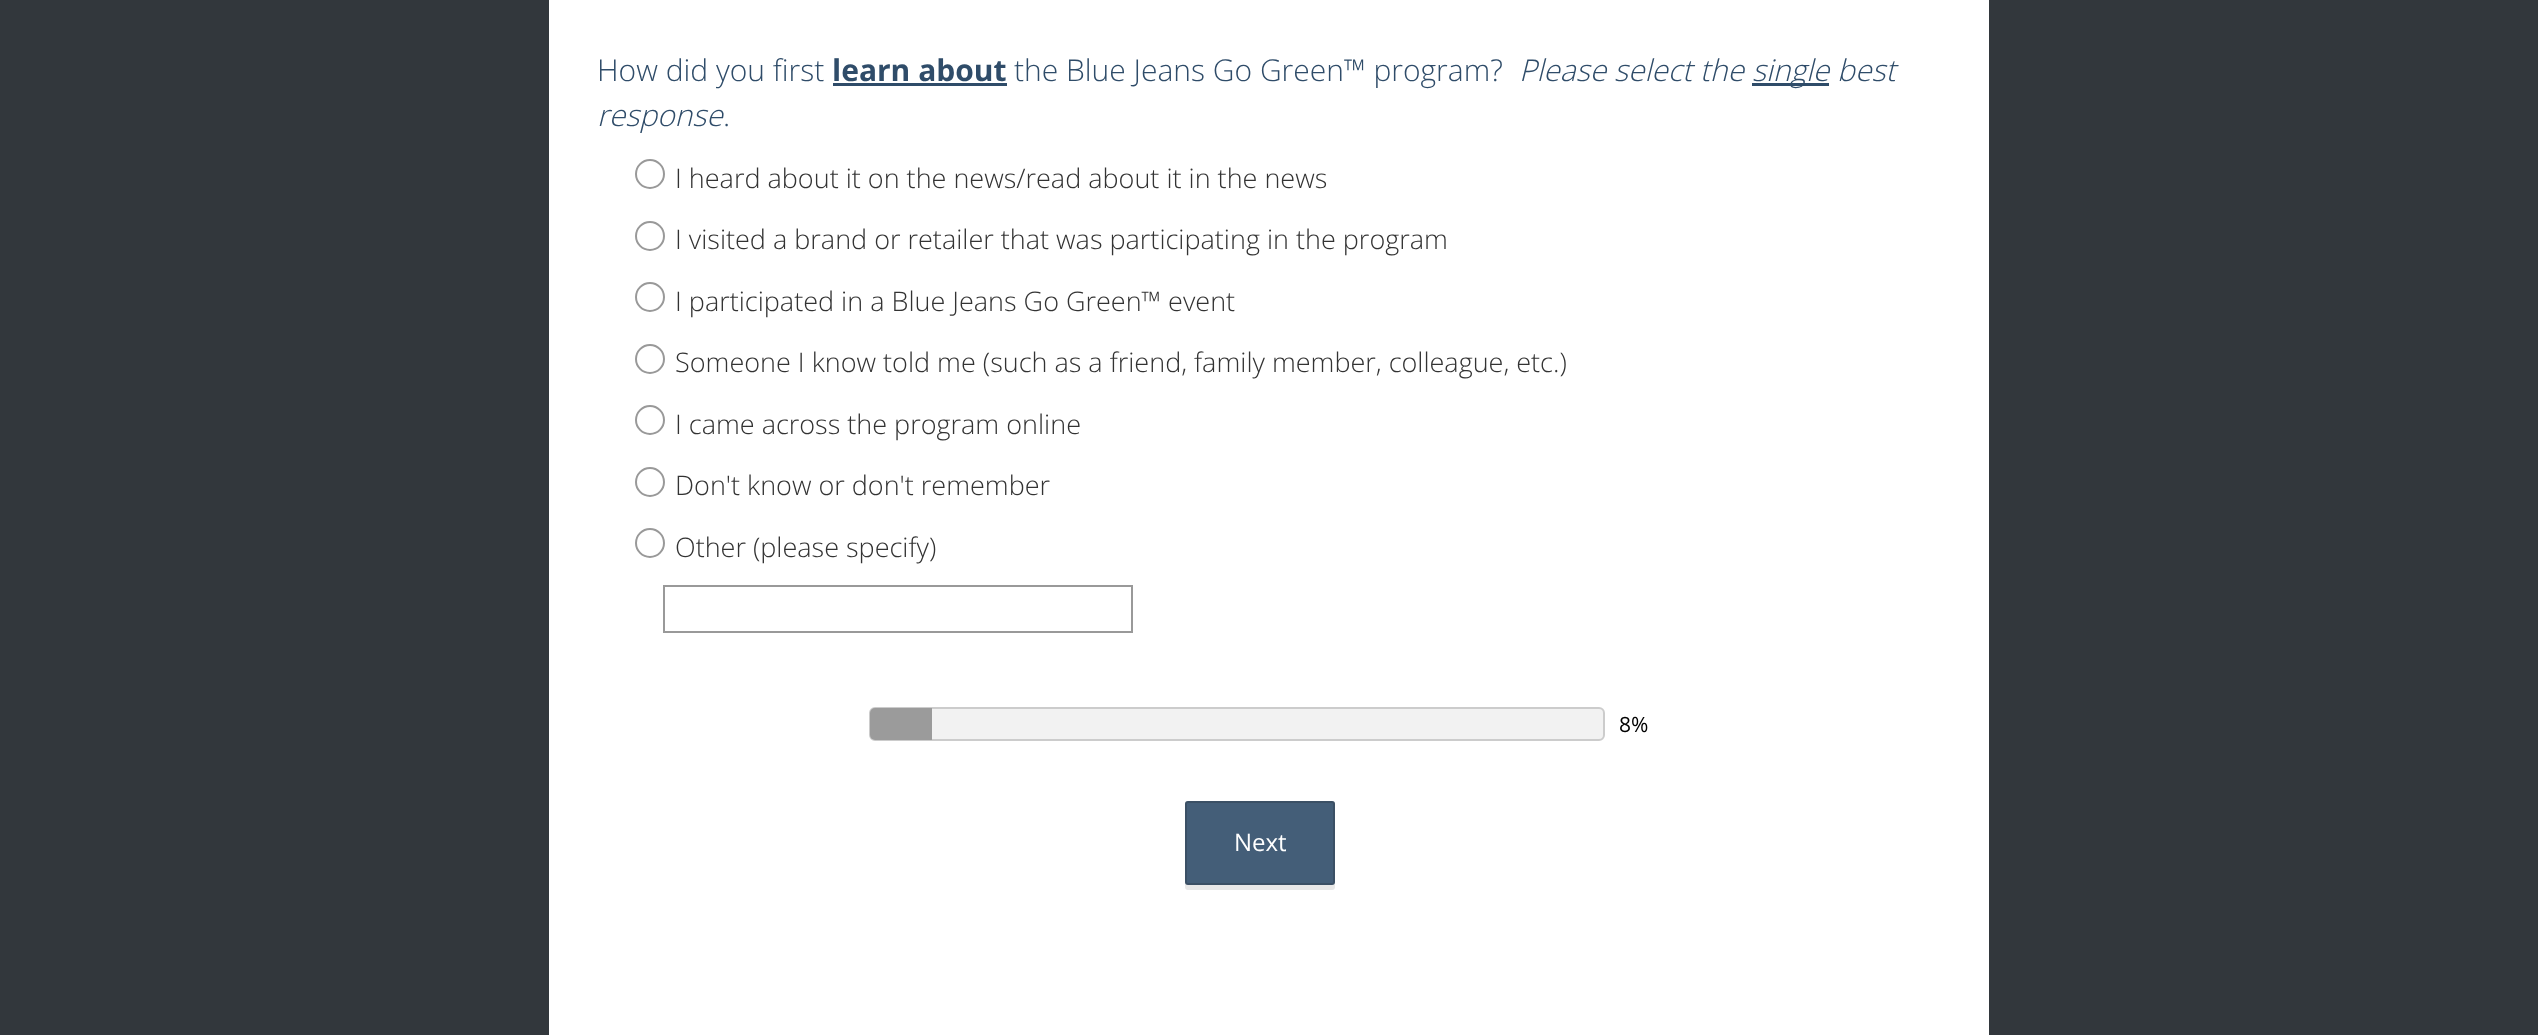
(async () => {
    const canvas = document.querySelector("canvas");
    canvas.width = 2538;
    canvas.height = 1035;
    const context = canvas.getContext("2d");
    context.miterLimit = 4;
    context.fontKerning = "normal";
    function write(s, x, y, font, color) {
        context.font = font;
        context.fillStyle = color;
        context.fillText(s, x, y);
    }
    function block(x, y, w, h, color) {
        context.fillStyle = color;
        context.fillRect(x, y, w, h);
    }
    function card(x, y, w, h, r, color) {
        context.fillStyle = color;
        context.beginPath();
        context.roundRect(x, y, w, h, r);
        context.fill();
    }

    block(0, 0, 2538, 1035, "rgb(50, 55, 60)");
    block(549, 0, 1440, 1035, "rgb(255, 255, 255)");
    write("How did you first", 597, 81, "300 30px Open Sans", "rgb(47, 76, 105)");
    write("learn about", 832, 81, "bold 30px Open Sans", "rgb(47, 76, 105)");
    block(833, 83, 174, 3, "rgb(47, 76, 105)");
    write("the Blue Jeans Go Green™ program?", 1014, 81, "300 30px Open Sans", "rgb(47, 76, 105)");
    write("Please select the", 1519, 81, "italic 300 30px Open Sans", "rgb(47, 76, 105)");
    block(1752, 83, 77, 3, "rgb(47, 76, 105)");
    write("single best", 1752, 81, "italic 300 30px Open Sans", "rgb(47, 76, 105)");
    write("response", 597, 126, "italic 300 30px Open Sans", "rgb(47, 76, 105)");
    write(".", 723, 126, "300 30px Open Sans", "rgb(47, 76, 105)");
    context.beginPath();
    context.arc(650, 174, 14, 0, Math.PI * 2);
    context.strokeStyle = "rgb(153, 153, 153)";
    context.lineWidth = 2;
    context.stroke();
    write("I heard about it on the news/read about it in the news", 675, 188, "300 27px Open Sans", "rgb(51, 51, 51)");
    context.beginPath();
    context.arc(650, 236, 14, 0, Math.PI * 2);
    context.stroke();
    write("I visited a brand or retailer that was participating in the program", 675, 249, "300 27px Open Sans", "rgb(51, 51, 51)");
    context.beginPath();
    context.arc(650, 297, 14, 0, Math.PI * 2);
    context.stroke();
    write("I participated in a Blue Jeans Go Green™ event", 675, 311, "300 27px Open Sans", "rgb(51, 51, 51)");
    context.beginPath();
    context.arc(650, 359, 14, 0, Math.PI * 2);
    context.stroke();
    write("Someone I know told me (such as a friend, family member, colleague, etc.)", 675, 372, "300 27px Open Sans", "rgb(51, 51, 51)");
    context.beginPath();
    context.arc(650, 420, 14, 0, Math.PI * 2);
    context.stroke();
    write("I came across the program online", 675, 434, "300 27px Open Sans", "rgb(51, 51, 51)");
    context.beginPath();
    context.arc(650, 482, 14, 0, Math.PI * 2);
    context.stroke();
    write("Don't know or don't remember", 675, 495, "300 27px Open Sans", "rgb(51, 51, 51)");
    context.beginPath();
    context.arc(650, 543, 14, 0, Math.PI * 2);
    context.stroke();
    write("Other (please specify)", 675, 557, "300 27px Open Sans", "rgb(51, 51, 51)");
    context.strokeRect(664, 586, 468, 46);
    context.fillStyle = "rgb(242, 242, 242)";
    context.beginPath();
    context.roundRect(870, 708, 734, 32, 5);
    context.fill();
    context.strokeStyle = "rgb(204, 204, 204)";
    context.stroke();
    context.fillStyle = "rgb(155, 155, 155)";
    context.beginPath();
    context.roundRect(870, 708, 62, 32, [5, 0, 0, 5]);
    context.fill();
    write("8%", 1619, 732, "21px Open Sans", "rgb(0, 0, 0)");
    context.fillStyle = "rgb(232, 232, 232)";
    context.beginPath();
    context.moveTo(1185, 882);
    context.lineTo(1185, 887);
    context.bezierCurveTo(1185, 889, 1186, 890, 1188, 890);
    context.lineTo(1332, 890);
    context.bezierCurveTo(1334, 890, 1335, 889, 1335, 887);
    context.lineTo(1335, 882);
    context.bezierCurveTo(1335, 884, 1334, 885, 1332, 885);
    context.lineTo(1188, 885);
    context.bezierCurveTo(1186, 885, 1185, 884, 1185, 882);
    context.closePath();
    context.fill();
    card(1185, 801, 150, 84, 3, "rgb(68, 94, 120)");
    context.beginPath();
    context.roundRect(1186, 802, 148, 82, 2);
    context.strokeStyle = "rgba(26, 26, 26, 0.2)";
    context.stroke();
    write("Next", 1234, 851, "24px Open Sans", "rgb(255, 255, 255)");
})();
